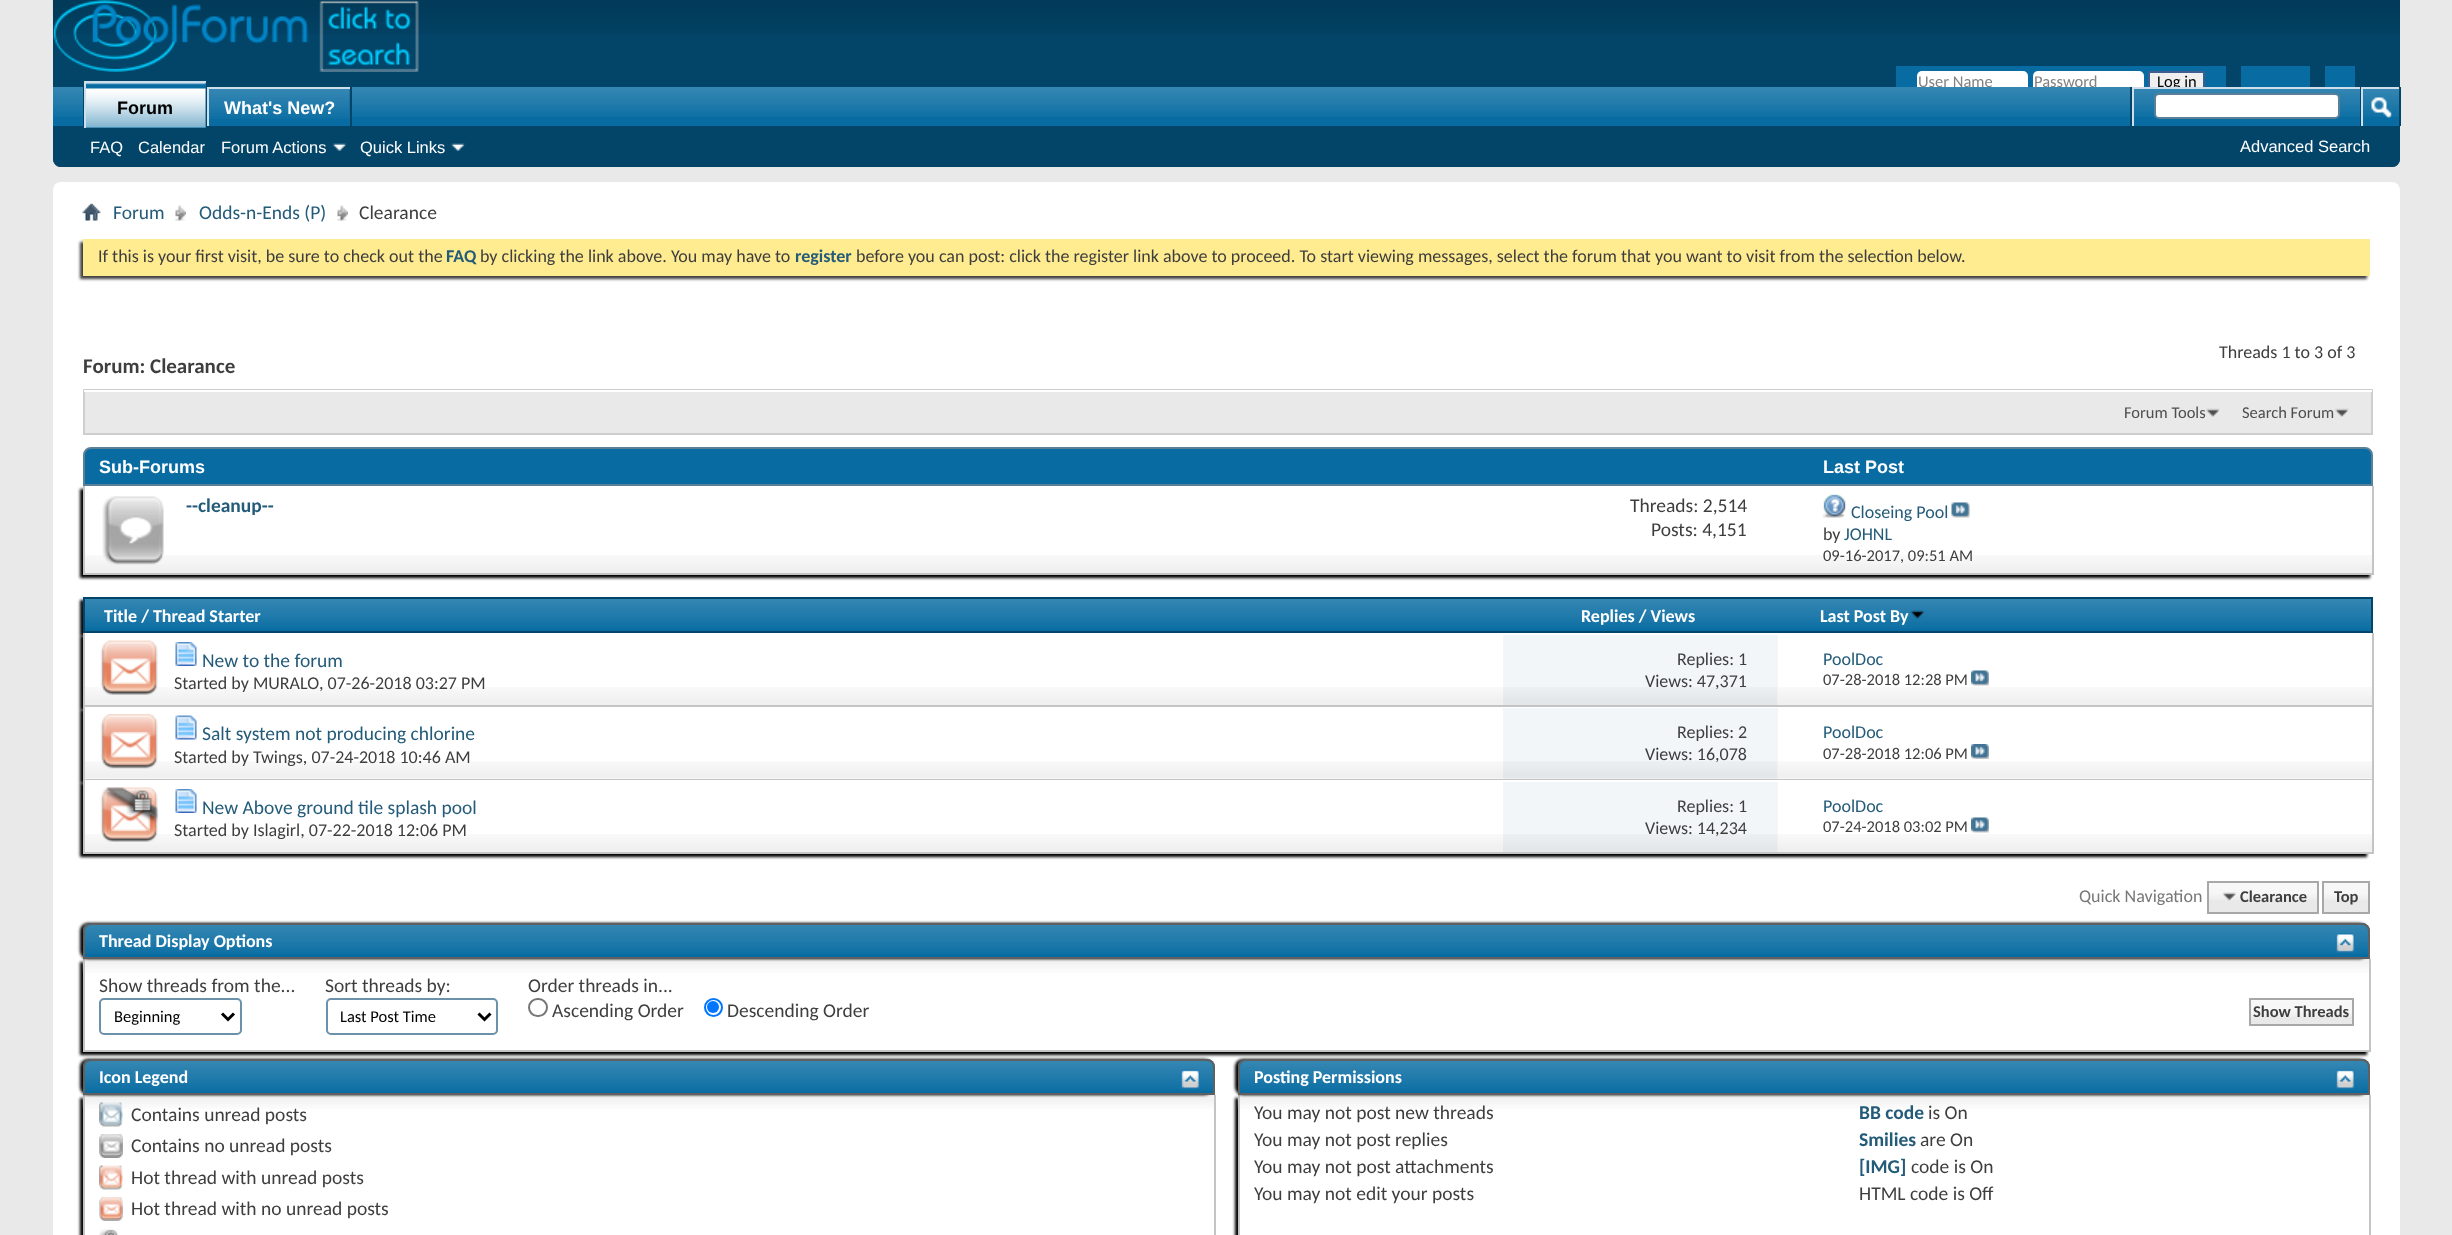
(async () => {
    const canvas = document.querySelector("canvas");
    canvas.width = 2452;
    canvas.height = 1235;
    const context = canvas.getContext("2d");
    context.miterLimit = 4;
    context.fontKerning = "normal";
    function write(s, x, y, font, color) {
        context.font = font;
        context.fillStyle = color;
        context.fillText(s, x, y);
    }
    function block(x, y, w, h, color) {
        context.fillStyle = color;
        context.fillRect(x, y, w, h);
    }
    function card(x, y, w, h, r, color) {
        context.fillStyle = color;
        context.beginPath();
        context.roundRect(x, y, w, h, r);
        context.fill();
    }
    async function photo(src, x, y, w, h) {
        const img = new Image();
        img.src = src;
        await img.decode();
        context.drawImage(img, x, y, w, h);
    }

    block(0, 0, 2452, 1235, "rgb(233, 233, 233)");
    context.fillStyle = "rgb(3, 69, 105)";
    context.beginPath();
    context.roundRect(53, 0, 2347, 167, [0, 0, 8, 8]);
    context.fill();
    await photo("media/1.png", 52, 0, 2348, 35);
    await photo("media/2.png", 52, 0, 367, 72);
    block(1896, 66, 330, 21, "rgb(8, 108, 162)");
    card(1917, 71, 111, 22, 5, "rgb(255, 255, 255)");
    write("User Name", 1918, 87, "16.5px Carlito", "rgb(130, 130, 130)");
    card(2033, 71, 111, 22, 5, "rgb(255, 255, 255)");
    write("Password", 2034, 87, "16.5px Carlito", "rgb(130, 130, 130)");
    block(2150, 73, 53, 14, "rgb(239, 239, 239)");
    context.strokeStyle = "rgb(65, 93, 141)";
    context.lineWidth = 2;
    context.strokeRect(2149, 72, 55, 20);
    write("Log in", 2157, 87, "16.5px Carlito", "rgb(0, 0, 0)");
    block(2241, 66, 69, 21, "rgb(8, 108, 162)");
    block(2325, 66, 30, 21, "rgb(8, 108, 162)");
    context.fillStyle = "rgb(3, 69, 105)";
    context.beginPath();
    context.roundRect(53, 87, 2347, 80, [0, 0, 8, 8]);
    context.fill();
    block(53, 87, 2346, 39, "rgb(8, 108, 162)");
    await photo("media/3.png", 53, 87, 2346, 30);
    block(350, 87, 2, 41, "rgb(3, 69, 105)");
    block(209, 89, 141, 28, "rgb(8, 108, 162)");
    await photo("media/4.png", 209, 89, 141, 30);
    block(207, 87, 143, 2, "rgb(206, 223, 235)");
    block(207, 87, 2, 41, "rgb(206, 223, 235)");
    write("What's New?", 224, 114, "bold 18px Liberation Sans", "rgb(255, 255, 255)");
    block(206, 87, 1, 39, "rgb(3, 69, 105)");
    block(83, 87, 1, 39, "rgb(3, 69, 105)");
    block(86, 83, 120, 45, "rgb(8, 108, 162)");
    await photo("media/5.png", 86, 83, 120, 45);
    block(84, 81, 122, 2, "rgb(206, 223, 235)");
    block(84, 81, 2, 47, "rgb(206, 223, 235)");
    write("Forum", 117, 114, "bold 18px Liberation Sans", "rgb(0, 0, 0)");
    block(207, 126, 2, 2, "rgb(3, 69, 105)");
    write("FAQ", 90, 153, "16.5px Liberation Sans", "rgb(255, 255, 255)");
    write("Calendar", 138, 153, "16.5px Liberation Sans", "rgb(255, 255, 255)");
    write("Forum Actions", 221, 153, "16.5px Liberation Sans", "rgb(255, 255, 255)");
    await photo("media/6.png", 332, 143, 15, 8);
    write("Quick Links", 360, 153, "16.5px Liberation Sans", "rgb(255, 255, 255)");
    await photo("media/7.png", 451, 143, 14, 8);
    block(2130, 87, 2, 39, "rgb(3, 69, 105)");
    block(2132, 87, 228, 2, "rgb(206, 223, 235)");
    block(2132, 87, 2, 39, "rgb(206, 223, 235)");
    context.fillStyle = "rgb(255, 255, 255)";
    context.beginPath();
    context.roundRect(2155, 94, 184, 24, 4);
    context.fill();
    context.strokeStyle = "rgb(90, 127, 151)";
    context.stroke();
    block(2400, 87, 1, 39, "rgb(3, 69, 105)");
    block(2360, 87, 1, 39, "rgb(3, 69, 105)");
    block(2361, 87, 38, 2, "rgb(206, 223, 235)");
    block(2361, 87, 2, 39, "rgb(206, 223, 235)");
    await photo("media/8.png", 2371, 97, 21, 22);
    write("Advanced Search", 2240, 152, "16.5px Liberation Sans", "rgb(255, 255, 255)");
    card(53, 182, 2347, 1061, 8, "rgb(255, 255, 255)");
    await photo("media/9.png", 82, 203, 19, 18);
    await photo("media/10.png", 175, 205, 11, 16);
    write("Forum", 113, 219, "19.5px Carlito", "rgb(35, 91, 121)");
    await photo("media/10.png", 337, 205, 11, 16);
    write("Odds-n-Ends (P)", 199, 219, "19.5px Carlito", "rgb(35, 91, 121)");
    write("Clearance", 359, 219, "19.5px Carlito", "rgb(62, 62, 62)");
    context.filter = "blur(1.5px)";
    context.beginPath();
    context.rect(80, 242, 2287, 37);
    context.fill();
    context.filter = "none";
    block(83, 239, 2287, 37, "rgb(255, 235, 144)");
    write("If this is your first visit, be sure to check out the", 98, 262, "18px Carlito", "rgb(62, 62, 62)");
    write("FAQ", 446, 262, "bold 18px Carlito", "rgb(35, 91, 121)");
    write("by clicking the link above. You may have to", 480, 262, "18px Carlito", "rgb(62, 62, 62)");
    write("register", 795, 262, "bold 18px Carlito", "rgb(35, 91, 121)");
    write("before you can post: click the register link above to proceed. To start viewing messages, select the forum that you want to visit from the selection below.", 856, 262, "18px Carlito", "rgb(62, 62, 62)");
    write("Threads 1 to 3 of 3", 2219, 358, "18px Carlito", "rgb(62, 62, 62)");
    write("Forum: Clearance", 83, 373, "bold 21px Carlito", "rgb(62, 62, 62)");
    block(85, 392, 2286, 41, "rgb(233, 233, 233)");
    context.strokeStyle = "rgb(206, 206, 206)";
    context.strokeRect(84, 390, 2288, 44);
    block(84, 390, 2288, 2, "rgb(255, 255, 255)");
    await photo("media/11.png", 2206, 408, 14, 10);
    write("Forum Tools", 2124, 418, "16.5px Carlito", "rgb(78, 78, 78)");
    await photo("media/12.png", 2335, 408, 14, 10);
    write("Search Forum", 2242, 418, "16.5px Carlito", "rgb(78, 78, 78)");
    context.fillStyle = "rgb(8, 108, 162)";
    context.beginPath();
    context.roundRect(84, 448, 2288, 37, [7, 7, 0, 0]);
    context.fill();
    context.strokeStyle = "rgb(90, 127, 151)";
    context.stroke();
    write("Sub-Forums", 99, 473, "bold 18px Liberation Sans", "rgb(255, 255, 255)");
    write("Last Post", 1823, 473, "bold 18px Liberation Sans", "rgb(255, 255, 255)");
    context.fillStyle = "rgb(0, 0, 0)";
    context.filter = "blur(1.5px)";
    context.beginPath();
    context.rect(80, 489, 2290, 89);
    context.fill();
    context.filter = "none";
    block(85, 486, 2287, 87, "rgb(255, 255, 255)");
    await photo("media/13.png", 82, 555, 2290, 18);
    block(2372, 486, 2, 89, "rgb(196, 196, 196)");
    block(83, 573, 2290, 2, "rgb(196, 196, 196)");
    block(83, 486, 2, 89, "rgb(196, 196, 196)");
    await photo("media/14.png", 102, 496, 62, 69);
    write("--cleanup--", 186, 512, "bold 19.5px Carlito", "rgb(35, 91, 121)");
    write("Threads: 2,514", 1630, 512, "19.5px Carlito", "rgb(62, 62, 62)");
    write("Posts: 4,151", 1651, 536, "19.5px Carlito", "rgb(62, 62, 62)");
    await photo("media/15.png", 1822, 494, 24, 24);
    write("Closeing Pool", 1851, 518, "18px Carlito", "rgb(35, 91, 121)");
    await photo("media/16.png", 1951, 502, 19, 16);
    write("by", 1823, 540, "18px Carlito", "rgb(62, 62, 62)");
    write("JOHNL", 1844, 540, "18px Carlito", "rgb(35, 91, 121)");
    write("09-16-2017, 09:51 AM", 1823, 561, "16.5px Carlito", "rgb(62, 62, 62)");
    context.fillStyle = "rgb(0, 0, 0)";
    context.filter = "blur(1.5px)";
    context.beginPath();
    context.rect(80, 600, 2290, 36);
    context.fill();
    context.filter = "none";
    block(85, 599, 2286, 32, "rgb(8, 108, 162)");
    await photo("media/17.png", 82, 598, 2289, 31);
    context.strokeStyle = "rgb(3, 69, 105)";
    context.strokeRect(84, 598, 2288, 34);
    write("Title / Thread Starter", 104, 622, "bold 18px Carlito", "rgb(255, 255, 255)");
    write("Replies / Views", 1581, 622, "bold 18px Carlito", "rgb(255, 255, 255)");
    write("Last Post By", 1820, 622, "bold 18px Carlito", "rgb(255, 255, 255)");
    await photo("media/18.png", 1910, 610, 15, 9);
    context.fillStyle = "rgb(0, 0, 0)";
    context.filter = "blur(1.5px)";
    context.beginPath();
    context.rect(80, 636, 2287, 74);
    context.fill();
    context.filter = "none";
    block(85, 633, 2287, 72, "rgb(255, 255, 255)");
    await photo("media/19.png", 82, 687, 2290, 18);
    block(2372, 633, 2, 74, "rgb(196, 196, 196)");
    block(83, 705, 2290, 2, "rgb(196, 196, 196)");
    block(83, 633, 2, 74, "rgb(196, 196, 196)");
    await photo("media/20.png", 100, 640, 58, 55);
    await photo("media/21.png", 175, 642, 22, 24);
    write("New to the forum", 202, 667, "19.5px Carlito", "rgb(35, 91, 121)");
    write("Started by MURALO", 174, 689, "18px Carlito", "rgb(62, 62, 62)");
    write(", 07-26-2018 03:27 PM", 319, 689, "18px Carlito", "rgb(62, 62, 62)");
    block(1503, 635, 275, 70, "rgb(242, 246, 248)");
    await photo("media/22.png", 1503, 687, 275, 18);
    write("Replies: 1", 1677, 665, "18px Carlito", "rgb(62, 62, 62)");
    write("Views: 47,371", 1645, 687, "18px Carlito", "rgb(62, 62, 62)");
    write("PoolDoc", 1823, 665, "18px Carlito", "rgb(35, 91, 121)");
    write("07-28-2018 12:28 PM", 1823, 685, "16.5px Carlito", "rgb(62, 62, 62)");
    await photo("media/23.png", 1971, 670, 18, 16);
    context.fillStyle = "rgb(0, 0, 0)";
    context.filter = "blur(1.5px)";
    context.beginPath();
    context.rect(80, 710, 2287, 73);
    context.fill();
    context.filter = "none";
    block(85, 707, 2285, 72, "rgb(255, 255, 255)");
    await photo("media/24.png", 82, 761, 2290, 18);
    block(2372, 707, 2, 73, "rgb(196, 196, 196)");
    block(83, 779, 2290, 1, "rgb(196, 196, 196)");
    block(83, 707, 2, 73, "rgb(196, 196, 196)");
    await photo("media/25.png", 100, 714, 58, 55);
    await photo("media/26.png", 175, 715, 22, 25);
    write("Salt system not producing chlorine", 202, 740, "19.5px Carlito", "rgb(35, 91, 121)");
    write("Started by Twings, 07-24-2018 10:46 AM", 174, 763, "18px Carlito", "rgb(62, 62, 62)");
    block(1503, 708, 275, 71, "rgb(242, 246, 248)");
    await photo("media/27.png", 1503, 761, 275, 18);
    write("Replies: 2", 1677, 738, "18px Carlito", "rgb(62, 62, 62)");
    write("Views: 16,078", 1645, 760, "18px Carlito", "rgb(62, 62, 62)");
    write("PoolDoc", 1823, 738, "18px Carlito", "rgb(35, 91, 121)");
    write("07-28-2018 12:06 PM", 1823, 759, "16.5px Carlito", "rgb(62, 62, 62)");
    await photo("media/28.png", 1971, 744, 18, 15);
    context.fillStyle = "rgb(0, 0, 0)";
    context.filter = "blur(1.5px)";
    context.beginPath();
    context.rect(80, 783, 2287, 74);
    context.fill();
    context.filter = "none";
    block(85, 780, 2285, 72, "rgb(255, 255, 255)");
    await photo("media/19.png", 82, 834, 2290, 18);
    block(2372, 780, 2, 74, "rgb(196, 196, 196)");
    block(83, 852, 2290, 2, "rgb(196, 196, 196)");
    block(83, 780, 2, 74, "rgb(196, 196, 196)");
    await photo("media/29.png", 100, 787, 59, 55);
    await photo("media/21.png", 175, 789, 22, 24);
    write("New Above ground tile splash pool", 202, 814, "19.5px Carlito", "rgb(35, 91, 121)");
    write("Started by Islagirl, 07-22-2018 12:06 PM", 174, 836, "18px Carlito", "rgb(62, 62, 62)");
    block(1503, 782, 275, 70, "rgb(242, 246, 248)");
    await photo("media/22.png", 1503, 834, 275, 18);
    write("Replies: 1", 1677, 812, "18px Carlito", "rgb(62, 62, 62)");
    write("Views: 14,234", 1645, 834, "18px Carlito", "rgb(62, 62, 62)");
    write("PoolDoc", 1823, 812, "18px Carlito", "rgb(35, 91, 121)");
    write("07-24-2018 03:02 PM", 1823, 832, "16.5px Carlito", "rgb(62, 62, 62)");
    await photo("media/23.png", 1971, 817, 18, 16);
    write("Quick Navigation", 2079, 902, "18px Carlito", "rgb(119, 119, 119)");
    block(2209, 883, 108, 29, "rgb(233, 233, 233)");
    await photo("media/30.png", 2209, 883, 108, 17);
    block(2324, 883, 44, 29, "rgb(233, 233, 233)");
    await photo("media/31.png", 2324, 883, 44, 17);
    context.strokeStyle = "rgb(168, 168, 168)";
    context.strokeRect(2208, 882, 110, 31);
    await photo("media/32.png", 2222, 892, 15, 10);
    write("Clearance", 2240, 902, "bold 16.5px Carlito", "rgb(62, 62, 62)");
    context.strokeRect(2323, 882, 46, 31);
    write("Top", 2334, 902, "bold 16.5px Carlito", "rgb(62, 62, 62)");
    context.fillStyle = "rgb(0, 0, 0)";
    context.filter = "blur(1.5px)";
    context.beginPath();
    context.rect(80, 962, 2287, 93);
    context.fill();
    context.filter = "none";
    block(85, 959, 2284, 91, "rgb(255, 255, 255)");
    await photo("media/35.png", 82, 958, 2287, 15);
    block(2369, 959, 2, 93, "rgb(196, 196, 196)");
    block(83, 1050, 2287, 2, "rgb(196, 196, 196)");
    block(83, 959, 2, 93, "rgb(196, 196, 196)");
    context.fillStyle = "rgb(0, 0, 0)";
    context.filter = "blur(1.5px)";
    context.beginPath();
    context.roundRect(80, 923, 2287, 36, 8);
    context.fill();
    context.filter = "none";
    context.fillStyle = "rgb(8, 108, 162)";
    context.beginPath();
    context.roundRect(83, 923, 2287, 36, [8, 8, 0, 0]);
    context.fill();
    await photo("media/33.png", 82, 924, 2288, 30);
    context.beginPath();
    context.roundRect(84, 924, 2285, 34, [7, 7, 0, 0]);
    context.strokeStyle = "rgb(96, 96, 96)";
    context.stroke();
    write("Thread Display Options", 99, 947, "bold 18px Carlito", "rgb(255, 255, 255)");
    await photo("media/34.png", 2335, 933, 20, 20);
    write("Show threads from the...", 99, 992, "19.5px Carlito", "rgb(62, 62, 62)");
    context.beginPath();
    context.roundRect(100, 999, 141, 35, 4);
    context.strokeStyle = "rgb(107, 145, 171)";
    context.stroke();
    context.beginPath();
    context.moveTo(222, 1013.5);
    context.lineTo(228, 1019.5);
    context.lineTo(234, 1013.5);
    context.strokeStyle = "rgb(0, 0, 0)";
    context.lineWidth = 3;
    context.stroke();
    write("Beginning", 114, 1022, "16.5px Carlito", "rgb(0, 0, 0)");
    write("Sort threads by:", 325, 992, "19.5px Carlito", "rgb(62, 62, 62)");
    context.beginPath();
    context.roundRect(327, 999, 170, 35, 4);
    context.strokeStyle = "rgb(107, 145, 171)";
    context.lineWidth = 2;
    context.stroke();
    context.beginPath();
    context.moveTo(478.5, 1013.5);
    context.lineTo(484.5, 1019.5);
    context.lineTo(490.5, 1013.5);
    context.strokeStyle = "rgb(0, 0, 0)";
    context.lineWidth = 3;
    context.stroke();
    write("Last Post Time", 340, 1022, "16.5px Carlito", "rgb(0, 0, 0)");
    write("Order threads in...", 528, 992, "19.5px Carlito", "rgb(62, 62, 62)");
    context.beginPath();
    context.roundRect(529, 999, 18, 17, 8.5);
    context.strokeStyle = "rgb(118, 118, 118)";
    context.lineWidth = 2;
    context.stroke();
    write("Ascending Order", 552, 1017, "19.5px Carlito", "rgb(62, 62, 62)");
    context.beginPath();
    context.arc(713.5, 1007.5, 8.5, 0, Math.PI * 2);
    context.strokeStyle = "rgb(0, 117, 255)";
    context.stroke();
    context.fillStyle = "rgb(0, 117, 255)";
    context.beginPath();
    context.arc(713, 1007, 6, 0, Math.PI * 2);
    context.fill();
    write("Descending Order", 727, 1017, "19.5px Carlito", "rgb(62, 62, 62)");
    block(2251, 1000, 101, 24, "rgb(233, 233, 233)");
    await photo("media/36.png", 2251, 1000, 101, 17);
    context.strokeStyle = "rgb(168, 168, 168)";
    context.strokeRect(2250, 999, 103, 26);
    write("Show Threads", 2253, 1017, "bold 16.5px Carlito", "rgb(62, 62, 62)");
    context.save();
    context.beginPath();
    context.rect(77, 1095, 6, 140);
    context.clip();
    context.fillStyle = "rgb(0, 0, 0)";
    context.filter = "blur(1.5px)";
    context.beginPath();
    context.rect(80, 1098, 1132, 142);
    context.fill();
    context.filter = "none";
    context.restore();
    await photo("media/39.png", 82, 1095, 1132, 14);
    block(1214, 1095, 2, 140, "rgb(196, 196, 196)");
    block(83, 1095, 2, 140, "rgb(196, 196, 196)");
    context.fillStyle = "rgb(0, 0, 0)";
    context.filter = "blur(1.5px)";
    context.beginPath();
    context.roundRect(80, 1059, 1132, 36, 8);
    context.fill();
    context.filter = "none";
    context.fillStyle = "rgb(8, 108, 162)";
    context.beginPath();
    context.roundRect(83, 1059, 1132, 36, [8, 8, 0, 0]);
    context.fill();
    await photo("media/37.png", 82, 1060, 1133, 31);
    context.beginPath();
    context.roundRect(84, 1060, 1130, 34, [7, 7, 0, 0]);
    context.strokeStyle = "rgb(96, 96, 96)";
    context.stroke();
    write("Icon Legend", 99, 1083, "bold 18px Carlito", "rgb(255, 255, 255)");
    await photo("media/38.png", 1180, 1069, 20, 20);
    await photo("media/40.png", 99, 1102, 24, 25);
    write("Contains unread posts", 131, 1121, "19.5px Carlito", "rgb(62, 62, 62)");
    await photo("media/41.png", 99, 1134, 24, 24);
    write("Contains no unread posts", 131, 1152, "19.5px Carlito", "rgb(62, 62, 62)");
    await photo("media/42.png", 99, 1165, 24, 25);
    write("Hot thread with unread posts", 131, 1184, "19.5px Carlito", "rgb(62, 62, 62)");
    await photo("media/43.png", 99, 1197, 24, 24);
    write("Hot thread with no unread posts", 131, 1215, "19.5px Carlito", "rgb(62, 62, 62)");
    await photo("media/44.png", 99, 1229, 19, 6);
    context.save();
    context.beginPath();
    context.rect(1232, 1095, 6, 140);
    context.clip();
    context.fillStyle = "rgb(0, 0, 0)";
    context.filter = "blur(1.5px)";
    context.beginPath();
    context.rect(1235, 1098, 1132, 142);
    context.fill();
    context.filter = "none";
    context.restore();
    await photo("media/39.png", 1237, 1095, 1132, 14);
    block(2369, 1095, 2, 140, "rgb(196, 196, 196)");
    block(1238, 1095, 2, 140, "rgb(196, 196, 196)");
    context.fillStyle = "rgb(0, 0, 0)";
    context.filter = "blur(1.5px)";
    context.beginPath();
    context.roundRect(1235, 1059, 1132, 36, 8);
    context.fill();
    context.filter = "none";
    context.fillStyle = "rgb(8, 108, 162)";
    context.beginPath();
    context.roundRect(1238, 1059, 1132, 36, [8, 8, 0, 0]);
    context.fill();
    await photo("media/37.png", 1237, 1060, 1133, 31);
    context.beginPath();
    context.roundRect(1239, 1060, 1130, 34, [7, 7, 0, 0]);
    context.stroke();
    write("Posting Permissions", 1254, 1083, "bold 18px Carlito", "rgb(255, 255, 255)");
    await photo("media/45.png", 2335, 1069, 20, 20);
    write("You may not post new threads", 1254, 1119, "19.5px Carlito", "rgb(62, 62, 62)");
    write("You may not post replies", 1254, 1146, "19.5px Carlito", "rgb(62, 62, 62)");
    write("You may not post attachments", 1254, 1173, "19.5px Carlito", "rgb(62, 62, 62)");
    write("You may not edit your posts", 1254, 1200, "19.5px Carlito", "rgb(62, 62, 62)");
    write("BB code", 1859, 1119, "bold 19.5px Carlito", "rgb(35, 91, 121)");
    write("is On", 1928, 1119, "19.5px Carlito", "rgb(62, 62, 62)");
    write("Smilies", 1859, 1146, "bold 19.5px Carlito", "rgb(35, 91, 121)");
    write("are On", 1920, 1146, "19.5px Carlito", "rgb(62, 62, 62)");
    write("[IMG]", 1859, 1173, "bold 19.5px Carlito", "rgb(35, 91, 121)");
    write("code is On", 1911, 1173, "19.5px Carlito", "rgb(62, 62, 62)");
    write("HTML code is Off", 1859, 1200, "19.5px Carlito", "rgb(62, 62, 62)");
})();
